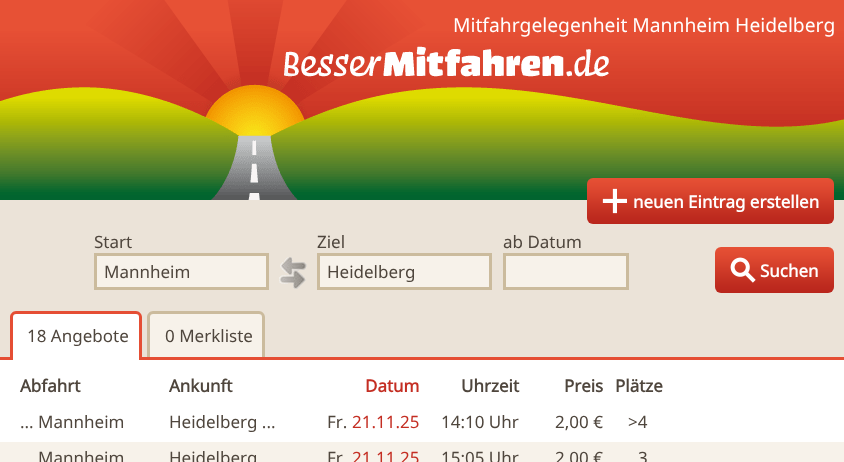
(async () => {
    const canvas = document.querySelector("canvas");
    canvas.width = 844;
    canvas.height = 462;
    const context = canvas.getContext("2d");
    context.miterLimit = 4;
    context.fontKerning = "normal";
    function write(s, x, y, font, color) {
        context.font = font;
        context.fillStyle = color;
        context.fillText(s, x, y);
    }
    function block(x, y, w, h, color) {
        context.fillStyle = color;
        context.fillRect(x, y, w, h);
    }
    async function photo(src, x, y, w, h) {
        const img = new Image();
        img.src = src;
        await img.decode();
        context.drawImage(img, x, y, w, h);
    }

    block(0, 0, 844, 462, "rgb(235, 227, 216)");
    await photo("media/1.png", 0, 0, 844, 200);
    write("Mitfahrgelegenheit Mannheim Heidelberg", 453, 32, "19.25px Noto Sans", "rgb(255, 255, 255)");
    block(0, 357, 844, 3, "rgb(229, 78, 52)");
    context.fillStyle = "rgb(255, 255, 255)";
    context.beginPath();
    context.roundRect(13, 314, 126, 46, [3, 3, 0, 0]);
    context.fill();
    context.fillStyle = "rgb(229, 78, 52)";
    context.beginPath();
    context.moveTo(16, 311);
    context.lineTo(136, 311);
    context.bezierCurveTo(139, 311, 142, 314, 142, 317);
    context.lineTo(142, 360);
    context.lineTo(10, 360);
    context.lineTo(10, 317);
    context.bezierCurveTo(10, 314, 13, 311, 16, 311);
    context.closePath();
    context.moveTo(16, 314);
    context.lineTo(136, 314);
    context.bezierCurveTo(138, 314, 139, 315, 139, 317);
    context.lineTo(139, 360);
    context.lineTo(13, 360);
    context.lineTo(13, 317);
    context.bezierCurveTo(13, 315, 14, 314, 16, 314);
    context.closePath();
    context.fill("evenodd");
    write("18 Angebote", 27, 342, "17px Noto Sans", "rgb(79, 70, 61)");
    context.fillStyle = "rgb(247, 242, 234)";
    context.beginPath();
    context.roundRect(150, 314, 112, 43, [3, 3, 0, 0]);
    context.fill();
    context.fillStyle = "rgb(203, 187, 157)";
    context.beginPath();
    context.moveTo(153, 311);
    context.lineTo(259, 311);
    context.bezierCurveTo(262, 311, 265, 314, 265, 317);
    context.lineTo(265, 357);
    context.lineTo(147, 357);
    context.lineTo(147, 317);
    context.bezierCurveTo(147, 314, 150, 311, 153, 311);
    context.closePath();
    context.moveTo(153, 314);
    context.lineTo(259, 314);
    context.bezierCurveTo(261, 314, 262, 315, 262, 317);
    context.lineTo(262, 357);
    context.lineTo(150, 357);
    context.lineTo(150, 317);
    context.bezierCurveTo(150, 315, 151, 314, 153, 314);
    context.closePath();
    context.fill("evenodd");
    write("0 Merkliste", 165, 342, "17px Noto Sans", "rgb(79, 70, 61)");
    block(0, 360, 844, 82, "rgb(255, 255, 255)");
    write("Abfahrt", 20, 392, "bold 17px Noto Sans", "rgb(79, 70, 61)");
    write("Ankunft", 169, 392, "bold 17px Noto Sans", "rgb(79, 70, 61)");
    write("Datum", 365, 392, "bold 17px Noto Sans", "rgb(196, 46, 35)");
    write("Uhrzeit", 461, 392, "bold 17px Noto Sans", "rgb(79, 70, 61)");
    write("Preis", 564, 392, "bold 17px Noto Sans", "rgb(79, 70, 61)");
    write("Plätze", 615, 392, "bold 17px Noto Sans", "rgb(79, 70, 61)");
    write("... Mannheim", 20, 428, "17px Noto Sans", "rgb(79, 70, 61)");
    write("Heidelberg ...", 169, 428, "17px Noto Sans", "rgb(79, 70, 61)");
    write("Fr.", 327, 428, "17px Noto Sans", "rgb(79, 70, 61)");
    write("21.11.25", 352, 428, "17px Noto Sans", "rgb(196, 46, 35)");
    write("14:10 Uhr", 441, 428, "17px Noto Sans", "rgb(79, 70, 61)");
    write("2,00 €", 555, 428, "17px Noto Sans", "rgb(79, 70, 61)");
    write(">4", 628, 428, "17px Noto Sans", "rgb(79, 70, 61)");
    block(0, 442, 844, 20, "rgb(247, 242, 234)");
    write("Mannheim", 38, 464, "17px Noto Sans", "rgb(79, 70, 61)");
    write("Heidelberg", 169, 464, "17px Noto Sans", "rgb(79, 70, 61)");
    write("Fr", 327, 464, "17px Noto Sans", "rgb(79, 70, 61)");
    write("21.11.25", 352, 464, "17px Noto Sans", "rgb(196, 46, 35)");
    write("15:05 Uhr", 441, 464, "17px Noto Sans", "rgb(79, 70, 61)");
    write("2,00 €", 555, 464, "17px Noto Sans", "rgb(79, 70, 61)");
    write("3", 638, 464, "17px Noto Sans", "rgb(79, 70, 61)");
    await photo("media/2.png", 587, 178, 247, 46);
    await photo("media/3.png", 602, 188, 25, 26);
    write("neuen Eintrag erstellen", 633, 208, "bold 17px Noto Sans", "rgb(255, 255, 255)");
    write("Start", 94, 248, "17px Noto Sans", "rgb(79, 70, 61)");
    context.fillStyle = "rgb(247, 242, 234)";
    context.beginPath();
    context.rect(95.5, 254.5, 172, 34);
    context.fill();
    context.strokeStyle = "rgb(203, 187, 157)";
    context.lineWidth = 3;
    context.stroke();
    write("Mannheim", 104, 278, "17px Noto Sans", "rgb(79, 70, 61)");
    write("Ziel", 317, 248, "17px Noto Sans", "rgb(79, 70, 61)");
    context.fillStyle = "rgb(247, 242, 234)";
    context.beginPath();
    context.rect(318.5, 254.5, 172, 34);
    context.fill();
    context.stroke();
    write("Heidelberg", 327, 278, "17px Noto Sans", "rgb(79, 70, 61)");
    write("ab Datum", 503, 248, "17px Noto Sans", "rgb(79, 70, 61)");
    context.fillStyle = "rgb(247, 242, 234)";
    context.beginPath();
    context.rect(504.5, 254.5, 123, 34);
    context.fill();
    context.stroke();
    await photo("media/4.png", 279, 257, 28, 32);
    await photo("media/5.png", 715, 247, 119, 46);
    await photo("media/6.png", 730, 257, 26, 26);
    write("Suchen", 760, 277, "bold 17px Noto Sans", "rgb(255, 255, 255)");
})();
